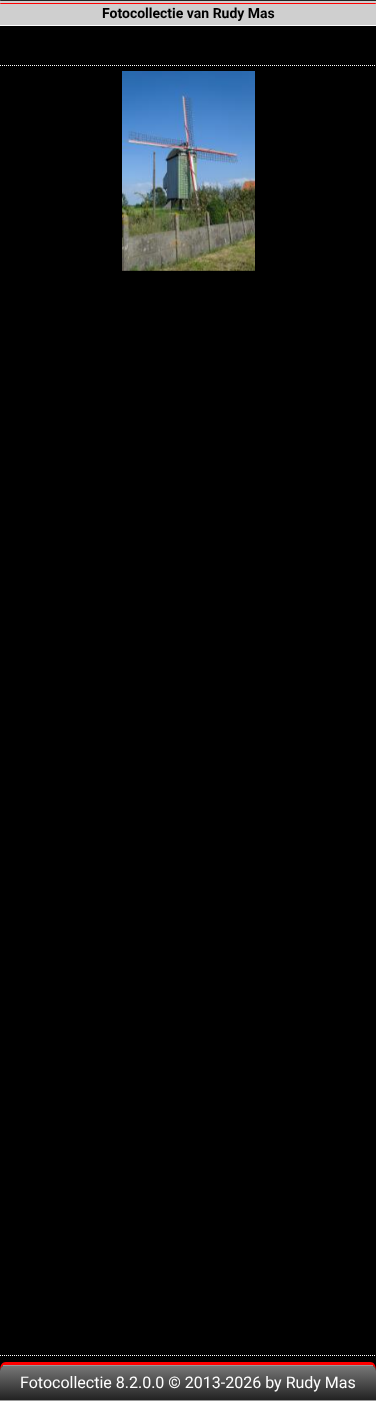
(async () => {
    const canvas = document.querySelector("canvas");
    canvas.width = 376;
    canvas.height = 1401;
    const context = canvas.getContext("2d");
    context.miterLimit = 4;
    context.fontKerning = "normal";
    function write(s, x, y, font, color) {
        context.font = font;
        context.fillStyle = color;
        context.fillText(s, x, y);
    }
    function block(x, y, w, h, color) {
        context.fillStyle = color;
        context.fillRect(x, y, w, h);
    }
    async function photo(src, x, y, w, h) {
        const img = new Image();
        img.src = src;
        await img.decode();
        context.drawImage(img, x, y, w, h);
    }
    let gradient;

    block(0, 0, 376, 1401, "rgb(0, 0, 0)");
    block(0, 0, 376, 25, "rgb(207, 207, 207)");
    context.fillStyle = "rgb(255, 0, 0)";
    context.beginPath();
    context.roundRect(0, 3, 376, 1, [0, 0, 1, 1]);
    context.fill();
    context.fillStyle = "rgb(17, 17, 17)";
    context.beginPath();
    context.roundRect(0, 0, 376, 1, [0, 0, 1, 1]);
    context.fill();
    block(1, 0, 375, 1, "rgb(34, 34, 34)");
    block(0, 25, 376, 1, "rgb(255, 255, 255)");
    write("Fotocollectie van Rudy Mas", 102, 18, "bold 14px Roboto", "rgb(0, 0, 0)");
    context.beginPath();
    context.moveTo(0, 65.5);
    context.lineTo(376, 65.5);
    context.strokeStyle = "rgb(255, 255, 255)";
    context.setLineDash([1, 1]);
    context.stroke();
    context.beginPath();
    context.moveTo(0, 1355.5);
    context.lineTo(376, 1355.5);
    context.stroke();
    await photo("media/1.png", 122, 71, 133, 200);
    context.fillStyle = "rgb(255, 0, 0)";
    context.beginPath();
    context.moveTo(6, 1362);
    context.bezierCurveTo(1, 1362, 0, 1367, 0, 1371);
    context.bezierCurveTo(0, 1368, 3, 1365, 6, 1365);
    context.lineTo(370, 1365);
    context.bezierCurveTo(373, 1365, 376, 1368, 376, 1371);
    context.bezierCurveTo(376, 1367, 375, 1362, 370, 1362);
    context.closePath();
    context.fill();
    context.save();
    context.beginPath();
    context.roundRect(0, 1365, 376, 36, [6, 6, 0, 0]);
    context.clip();
    gradient = context.createLinearGradient(188, 1366, 188, 1400);
    gradient.addColorStop(0, "rgb(119, 119, 119)");
    gradient.addColorStop(1, "rgb(34, 34, 34)");
    context.fillStyle = gradient;
    context.fillRect(0, 1366, 376, 34);
    context.restore();
    block(3, 1365, 370, 1, "rgb(153, 153, 153)");
    block(0, 1400, 376, 1, "rgb(153, 153, 153)");
    write("Fotocollectie 8.2.0.0 © 2013-2026 by Rudy Mas", 20, 1388, "16px Roboto", "rgb(255, 255, 255)");
})();
